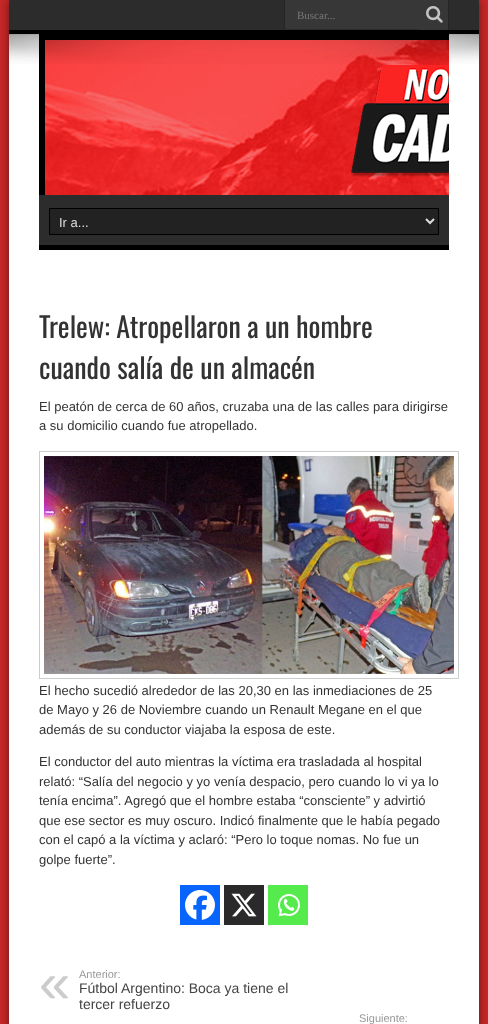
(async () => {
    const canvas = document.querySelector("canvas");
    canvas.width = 488;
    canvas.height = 1024;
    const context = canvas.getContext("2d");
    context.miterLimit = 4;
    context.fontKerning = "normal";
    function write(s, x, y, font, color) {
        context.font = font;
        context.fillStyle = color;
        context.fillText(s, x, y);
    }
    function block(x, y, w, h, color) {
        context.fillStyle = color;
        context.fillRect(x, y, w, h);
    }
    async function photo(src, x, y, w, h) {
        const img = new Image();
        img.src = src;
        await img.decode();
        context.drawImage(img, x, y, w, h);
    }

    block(0, 0, 488, 1024, "rgb(200, 40, 40)");
    context.fillStyle = "rgba(0, 0, 0, 0.5)";
    context.filter = "blur(5px)";
    context.beginPath();
    context.rect(9, 0, 470, 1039);
    context.fill();
    context.filter = "none";
    block(9, 34, 470, 990, "rgb(255, 255, 255)");
    block(9, 0, 470, 30, "rgb(44, 44, 44)");
    block(9, 30, 470, 4, "rgb(0, 0, 0)");
    block(285, 0, 134, 29, "rgb(55, 55, 55)");
    block(284, 0, 1, 29, "rgb(37, 37, 37)");
    write("Buscar...", 297, 19, "11px Liberation Serif", "rgb(120, 120, 120)");
    block(419, 0, 29, 30, "rgb(55, 55, 55)");
    block(448, 0, 1, 30, "rgb(37, 37, 37)");
    await photo("media/1.png", 426, 6, 17, 17);
    await photo("media/2.png", 39, 34, 410, 161);
    await photo("media/3.png", 9, 34, 470, 30);
    block(39, 195, 410, 50, "rgb(44, 44, 44)");
    block(39, 245, 410, 5, "rgb(0, 0, 0)");
    context.fillStyle = "rgb(34, 34, 34)";
    context.beginPath();
    context.rect(49.5, 208.5, 389, 26);
    context.fill();
    context.strokeStyle = "rgb(0, 0, 0)";
    context.stroke();
    context.beginPath();
    context.moveTo(426, 219);
    context.lineTo(430, 223);
    context.lineTo(434, 219);
    context.strokeStyle = "rgb(221, 221, 221)";
    context.lineWidth = 2;
    context.stroke();
    write("Ir a...", 59, 227, "13px Liberation Sans", "rgb(221, 221, 221)");
    write("Trelew: Atropellaron a un hombre", 39, 338, "28px Oswald", "rgb(51, 51, 51)");
    write("cuando salía de un almacén", 39, 379, "28px Oswald", "rgb(51, 51, 51)");
    write("El peatón de cerca de 60 años, cruzaba una de las calles para dirigirse", 39, 411, "13px Liberation Sans", "rgb(51, 51, 51)");
    write("a su domicilio cuando fue atropellado.", 39, 430, "13px Liberation Sans", "rgb(51, 51, 51)");
    context.strokeStyle = "rgb(203, 205, 204)";
    context.lineWidth = 1;
    context.strokeRect(39.5, 451.5, 419, 227);
    await photo("media/4.png", 44, 456, 410, 218);
    write("El hecho sucedió alrededor de las 20,30 en las inmediaciones de 25", 39, 695, "13px Liberation Sans", "rgb(51, 51, 51)");
    write("de Mayo y 26 de Noviembre cuando un Renault Megane en el que", 39, 714, "13px Liberation Sans", "rgb(51, 51, 51)");
    write("además de su conductor viajaba la esposa de este.", 39, 734, "13px Liberation Sans", "rgb(51, 51, 51)");
    write("El conductor del auto mientras la víctima era trasladada al hospital", 39, 766, "13px Liberation Sans", "rgb(51, 51, 51)");
    write("relató: “Salía del negocio y yo venía despacio, pero cuando lo vi ya lo", 39, 786, "13px Liberation Sans", "rgb(51, 51, 51)");
    write("tenía encima”. Agregó que el hombre estaba “consciente” y advirtió", 39, 805, "13px Liberation Sans", "rgb(51, 51, 51)");
    write("que ese sector es muy oscuro. Indicó finalmente que le había pegado", 39, 825, "13px Liberation Sans", "rgb(51, 51, 51)");
    write("con el capó a la víctima y aclaró: “Pero lo toque nomas. No fue un", 39, 844, "13px Liberation Sans", "rgb(51, 51, 51)");
    write("golpe fuerte”.", 39, 864, "13px Liberation Sans", "rgb(51, 51, 51)");
    block(180, 885, 40, 40, "rgb(7, 101, 254)");
    await photo("media/5.png", 185, 890, 30, 30);
    block(224, 885, 40, 40, "rgb(42, 42, 42)");
    await photo("media/6.png", 231, 893, 26, 24);
    block(268, 885, 40, 40, "rgb(85, 235, 76)");
    await photo("media/7.png", 278, 894, 22, 23);
    write("Anterior:", 79, 978, "11px Liberation Sans", "rgb(153, 153, 153)");
    write("«", 39, 1002, "56px Liberation Sans", "rgb(204, 204, 204)");
    write("Fútbol Argentino: Boca ya tiene el", 79, 993, "14px Liberation Sans", "rgb(68, 68, 68)");
    write("tercer refuerzo", 79, 1009, "14px Liberation Sans", "rgb(68, 68, 68)");
    write("Siguiente:", 359, 1022, "11px Liberation Sans", "rgb(153, 153, 153)");
})();
